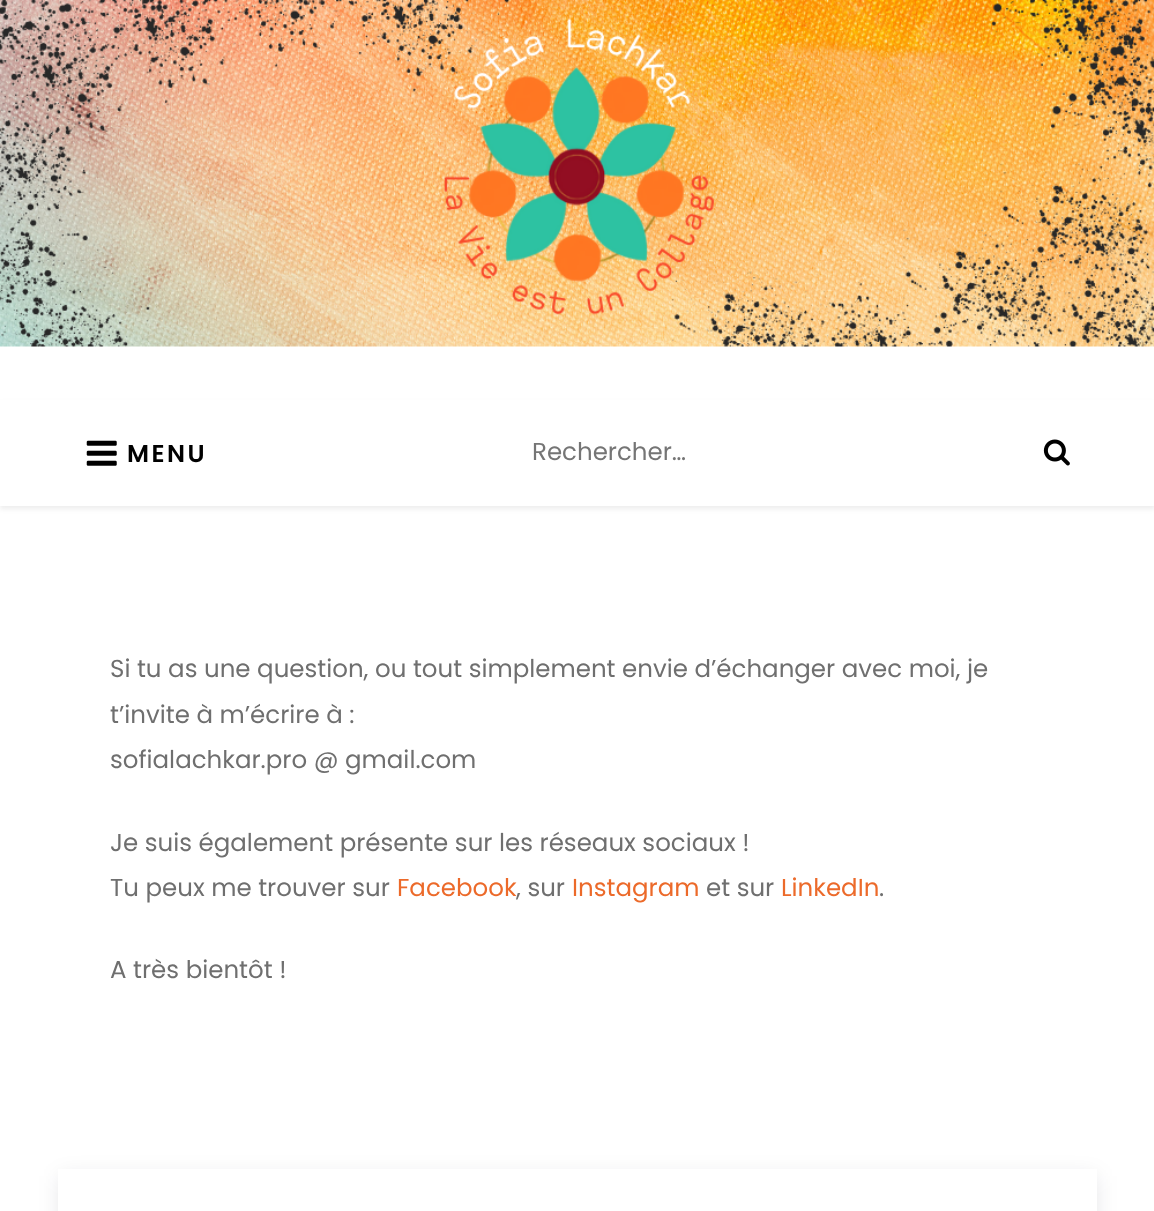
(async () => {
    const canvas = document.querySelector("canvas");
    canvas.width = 1154;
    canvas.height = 1211;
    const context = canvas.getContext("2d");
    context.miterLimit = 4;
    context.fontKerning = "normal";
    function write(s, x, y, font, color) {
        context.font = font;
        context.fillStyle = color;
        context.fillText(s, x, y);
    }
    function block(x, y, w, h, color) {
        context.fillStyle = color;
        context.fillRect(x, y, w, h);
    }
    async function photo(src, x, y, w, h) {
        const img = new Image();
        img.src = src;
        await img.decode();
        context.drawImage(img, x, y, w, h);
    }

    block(0, 0, 1154, 1211, "rgb(255, 255, 255)");
    await photo("media/1.png", 0, 0, 1154, 347);
    context.fillStyle = "rgba(0, 0, 0, 0.07)";
    context.filter = "blur(2.5px)";
    context.beginPath();
    context.rect(0, 403, 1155, 106);
    context.fill();
    context.filter = "none";
    block(0, 400, 1154, 106, "rgb(255, 255, 255)");
    await photo("media/2.png", 86, 440, 31, 26);
    context.letterSpacing = "2.5px";
    write("MENU", 127, 462, "600 24.5px Poppins", "rgb(0, 0, 0)");
    context.letterSpacing = "0px";
    write("Rechercher…", 532, 460, "24.5px Poppins", "rgb(117, 117, 117)");
    await photo("media/3.png", 1043, 439, 27, 27);
    write("Si tu as une question, ou tout simplement envie d’échanger avec moi, je", 110, 677, "24.5px Poppins", "rgb(111, 111, 111)");
    write("t’invite à m’écrire à :", 110, 723, "24.5px Poppins", "rgb(111, 111, 111)");
    write("sofialachkar.pro @ gmail.com", 110, 768, "24.5px Poppins", "rgb(111, 111, 111)");
    write("Je suis également présente sur les réseaux sociaux !", 110, 851, "24.5px Poppins", "rgb(111, 111, 111)");
    write("Tu peux me trouver sur", 110, 896, "24.5px Poppins", "rgb(111, 111, 111)");
    write("Facebook", 397, 896, "24.5px Poppins", "rgb(236, 106, 42)");
    write(", sur", 516, 896, "24.5px Poppins", "rgb(111, 111, 111)");
    write("Instagram", 572, 896, "24.5px Poppins", "rgb(236, 106, 42)");
    write("et sur", 706, 896, "24.5px Poppins", "rgb(111, 111, 111)");
    write("LinkedIn", 781, 896, "24.5px Poppins", "rgb(236, 106, 42)");
    write(".", 879, 896, "24.5px Poppins", "rgb(111, 111, 111)");
    write("A très bientôt !", 110, 978, "24.5px Poppins", "rgb(111, 111, 111)");
    context.save();
    context.beginPath();
    context.moveTo(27, 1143);
    context.lineTo(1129, 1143);
    context.lineTo(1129, 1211);
    context.lineTo(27, 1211);
    context.closePath();
    context.moveTo(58, 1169);
    context.lineTo(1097, 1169);
    context.lineTo(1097, 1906);
    context.lineTo(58, 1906);
    context.closePath();
    context.clip("evenodd");
    context.fillStyle = "rgba(7, 10, 25, 0.1)";
    context.filter = "blur(10.5px)";
    context.beginPath();
    context.rect(60, 1176, 1036, 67);
    context.fill();
    context.filter = "none";
    context.restore();
})();
